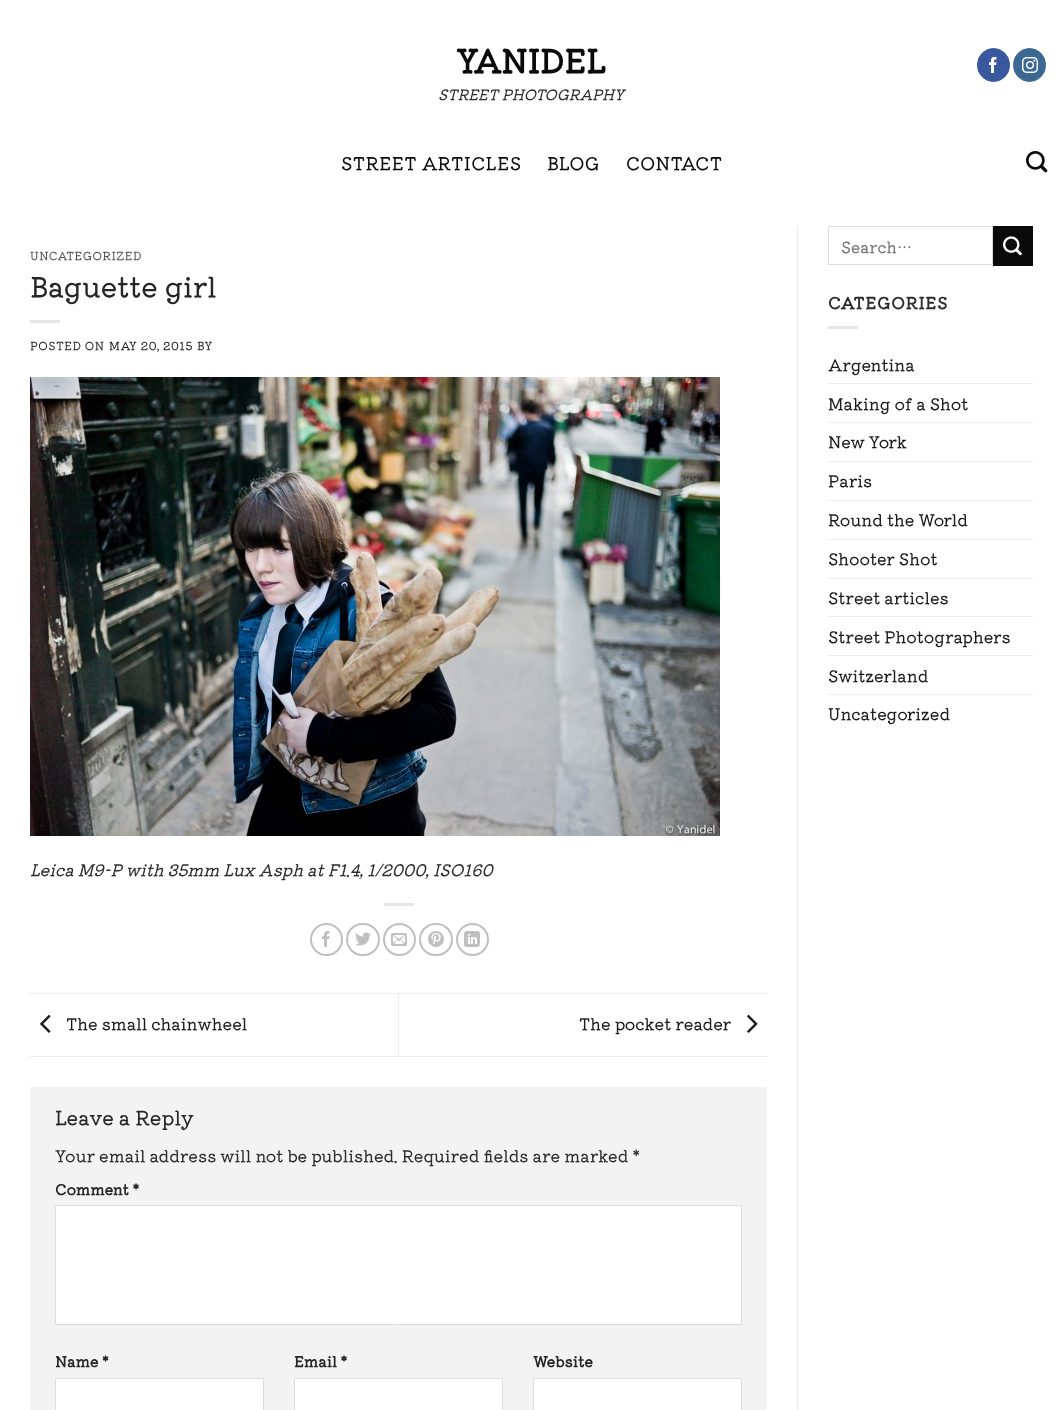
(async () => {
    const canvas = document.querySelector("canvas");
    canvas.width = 1063;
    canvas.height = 1410;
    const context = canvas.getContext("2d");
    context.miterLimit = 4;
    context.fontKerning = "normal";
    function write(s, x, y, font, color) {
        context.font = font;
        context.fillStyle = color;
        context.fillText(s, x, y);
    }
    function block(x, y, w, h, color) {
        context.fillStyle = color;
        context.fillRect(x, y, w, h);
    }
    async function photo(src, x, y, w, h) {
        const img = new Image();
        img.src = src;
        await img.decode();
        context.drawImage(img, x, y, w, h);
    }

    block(0, 0, 1063, 1410, "rgb(255, 255, 255)");
    write("YANIDEL", 456, 73, "bold 32px Kiwi Maru", "rgb(10, 10, 10)");
    write("STREET PHOTOGRAPHY", 438, 100, "italic 500 14.5px Kiwi Maru", "rgb(45, 45, 45)");
    context.fillStyle = "rgb(58, 88, 157)";
    context.beginPath();
    context.roundRect(977.5, 48.5, 32, 33, 16);
    context.fill();
    context.strokeStyle = "rgb(58, 88, 157)";
    context.stroke();
    await photo("media/1.png", 989, 57, 8, 16);
    context.fillStyle = "rgb(59, 105, 148)";
    context.beginPath();
    context.roundRect(1013.5, 48.5, 32, 33, 16);
    context.fill();
    context.strokeStyle = "rgb(59, 105, 148)";
    context.stroke();
    await photo("media/2.png", 1022, 57, 16, 16);
    context.letterSpacing = "0.4px";
    write("STREET ARTICLES", 341, 170, "500 17.75px Kiwi Maru", "rgb(10, 10, 10)");
    write("BLOG", 547, 170, "500 17.75px Kiwi Maru", "rgb(10, 10, 10)");
    write("CONTACT", 626, 170, "500 17.75px Kiwi Maru", "rgb(10, 10, 10)");
    await photo("media/3.png", 1026, 151, 22, 22);
    context.letterSpacing = "0.5px";
    write("UNCATEGORIZED", 30, 260, "500 11.25px Kiwi Maru", "rgb(81, 81, 81)");
    context.letterSpacing = "0px";
    write("Baguette girl", 30, 297, "500 27.5px Kiwi Maru", "rgb(38, 38, 38)");
    block(30, 320, 30, 3, "rgb(230, 230, 230)");
    context.letterSpacing = "0.5px";
    write("POSTED ON", 30, 350, "500 11.25px Kiwi Maru", "rgb(45, 45, 45)");
    write("MAY 20, 2015", 109, 350, "500 11.25px Kiwi Maru", "rgb(28, 28, 28)");
    write("BY", 197, 350, "500 11.25px Kiwi Maru", "rgb(45, 45, 45)");
    await photo("media/4.png", 30, 377, 690, 459);
    context.letterSpacing = "0px";
    write("Leica M9-P with 35mm Lux Asph at F1.4, 1/2000, ISO160", 30, 876, "italic 500 16.15px Kiwi Maru", "rgb(45, 45, 45)");
    block(384, 903, 30, 3, "rgb(230, 230, 230)");
    context.beginPath();
    context.arc(326.5, 939.5, 15.5, 0, Math.PI * 2);
    context.strokeStyle = "rgb(192, 192, 192)";
    context.lineWidth = 2;
    context.stroke();
    await photo("media/5.png", 322, 931, 8, 16);
    context.beginPath();
    context.roundRect(347, 924, 32, 31, 15.5);
    context.stroke();
    await photo("media/6.png", 355, 932, 16, 14);
    context.beginPath();
    context.arc(399.5, 939.5, 15.5, 0, Math.PI * 2);
    context.stroke();
    await photo("media/7.png", 391, 933, 16, 13);
    context.beginPath();
    context.roundRect(420, 924, 32, 31, 15.5);
    context.stroke();
    await photo("media/8.png", 428, 931, 16, 16);
    context.beginPath();
    context.arc(472.5, 939.5, 15.5, 0, Math.PI * 2);
    context.stroke();
    await photo("media/9.png", 464, 931, 16, 16);
    block(30, 993, 737, 1, "rgb(236, 236, 236)");
    block(30, 1056, 737, 1, "rgb(236, 236, 236)");
    await photo("media/10.png", 40, 1015, 11, 18);
    write("The small chainwheel", 66, 1030, "500 16.15px Kiwi Maru", "rgb(28, 28, 28)");
    block(398, 994, 1, 62, "rgb(236, 236, 236)");
    write("The pocket reader", 579, 1030, "500 16.15px Kiwi Maru", "rgb(28, 28, 28)");
    await photo("media/11.png", 747, 1014, 11, 19);
    block(30, 1087, 737, 323, "rgb(243, 243, 243)");
    write("Leave a Reply", 55, 1125, "500 19.5px Kiwi Maru", "rgb(38, 38, 38)");
    write("Your email address will not be published. Required fields are marked *", 55, 1162, "500 16.15px Kiwi Maru", "rgb(45, 45, 45)");
    write("Comment *", 55, 1195, "bold 14.5px Kiwi Maru", "rgb(38, 38, 38)");
    context.fillStyle = "rgb(255, 255, 255)";
    context.beginPath();
    context.rect(55.5, 1205.5, 686, 119);
    context.fill();
    context.strokeStyle = "rgb(221, 221, 221)";
    context.lineWidth = 1;
    context.stroke();
    write("Name *", 55, 1367, "bold 14.5px Kiwi Maru", "rgb(38, 38, 38)");
    context.fillStyle = "rgb(255, 255, 255)";
    context.beginPath();
    context.rect(55.5, 1378.5, 208, 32);
    context.fill();
    context.stroke();
    write("Email *", 294, 1367, "bold 14.5px Kiwi Maru", "rgb(38, 38, 38)");
    context.fillStyle = "rgb(255, 255, 255)";
    context.beginPath();
    context.rect(294.5, 1378.5, 208, 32);
    context.fill();
    context.stroke();
    write("Website", 533, 1367, "bold 14.5px Kiwi Maru", "rgb(38, 38, 38)");
    context.fillStyle = "rgb(255, 255, 255)";
    context.beginPath();
    context.rect(533.5, 1378.5, 208, 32);
    context.fill();
    context.stroke();
    block(797, 226, 1, 1184, "rgb(236, 236, 236)");
    context.strokeRect(828.5, 226.5, 164, 38);
    write("Search…", 841, 253, "500 15.5px Kiwi Maru", "rgb(117, 117, 117)");
    block(993, 226, 40, 40, "rgb(10, 10, 10)");
    await photo("media/12.png", 1003, 236, 19, 20);
    context.letterSpacing = "0.75px";
    write("CATEGORIES", 828, 309, "bold 16.15px Kiwi Maru", "rgb(45, 45, 45)");
    block(828, 326, 30, 3, "rgb(230, 230, 230)");
    context.letterSpacing = "0px";
    write("Argentina", 828, 371, "500 16.15px Kiwi Maru", "rgb(28, 28, 28)");
    block(828, 383, 205, 1, "rgb(236, 236, 236)");
    write("Making of a Shot", 828, 410, "500 16.15px Kiwi Maru", "rgb(28, 28, 28)");
    block(828, 422, 205, 1, "rgb(236, 236, 236)");
    write("New York", 828, 448, "500 16.15px Kiwi Maru", "rgb(28, 28, 28)");
    block(828, 461, 205, 1, "rgb(236, 236, 236)");
    write("Paris", 828, 487, "500 16.15px Kiwi Maru", "rgb(28, 28, 28)");
    block(828, 500, 205, 1, "rgb(236, 236, 236)");
    write("Round the World", 828, 526, "500 16.15px Kiwi Maru", "rgb(28, 28, 28)");
    block(828, 539, 205, 1, "rgb(236, 236, 236)");
    write("Shooter Shot", 828, 565, "500 16.15px Kiwi Maru", "rgb(28, 28, 28)");
    block(828, 578, 205, 1, "rgb(236, 236, 236)");
    write("Street articles", 828, 604, "500 16.15px Kiwi Maru", "rgb(28, 28, 28)");
    block(828, 616, 205, 1, "rgb(236, 236, 236)");
    write("Street Photographers", 828, 643, "500 16.15px Kiwi Maru", "rgb(28, 28, 28)");
    block(828, 655, 205, 1, "rgb(236, 236, 236)");
    write("Switzerland", 828, 682, "500 16.15px Kiwi Maru", "rgb(28, 28, 28)");
    block(828, 694, 205, 1, "rgb(236, 236, 236)");
    write("Uncategorized", 828, 720, "500 16.15px Kiwi Maru", "rgb(28, 28, 28)");
})();
